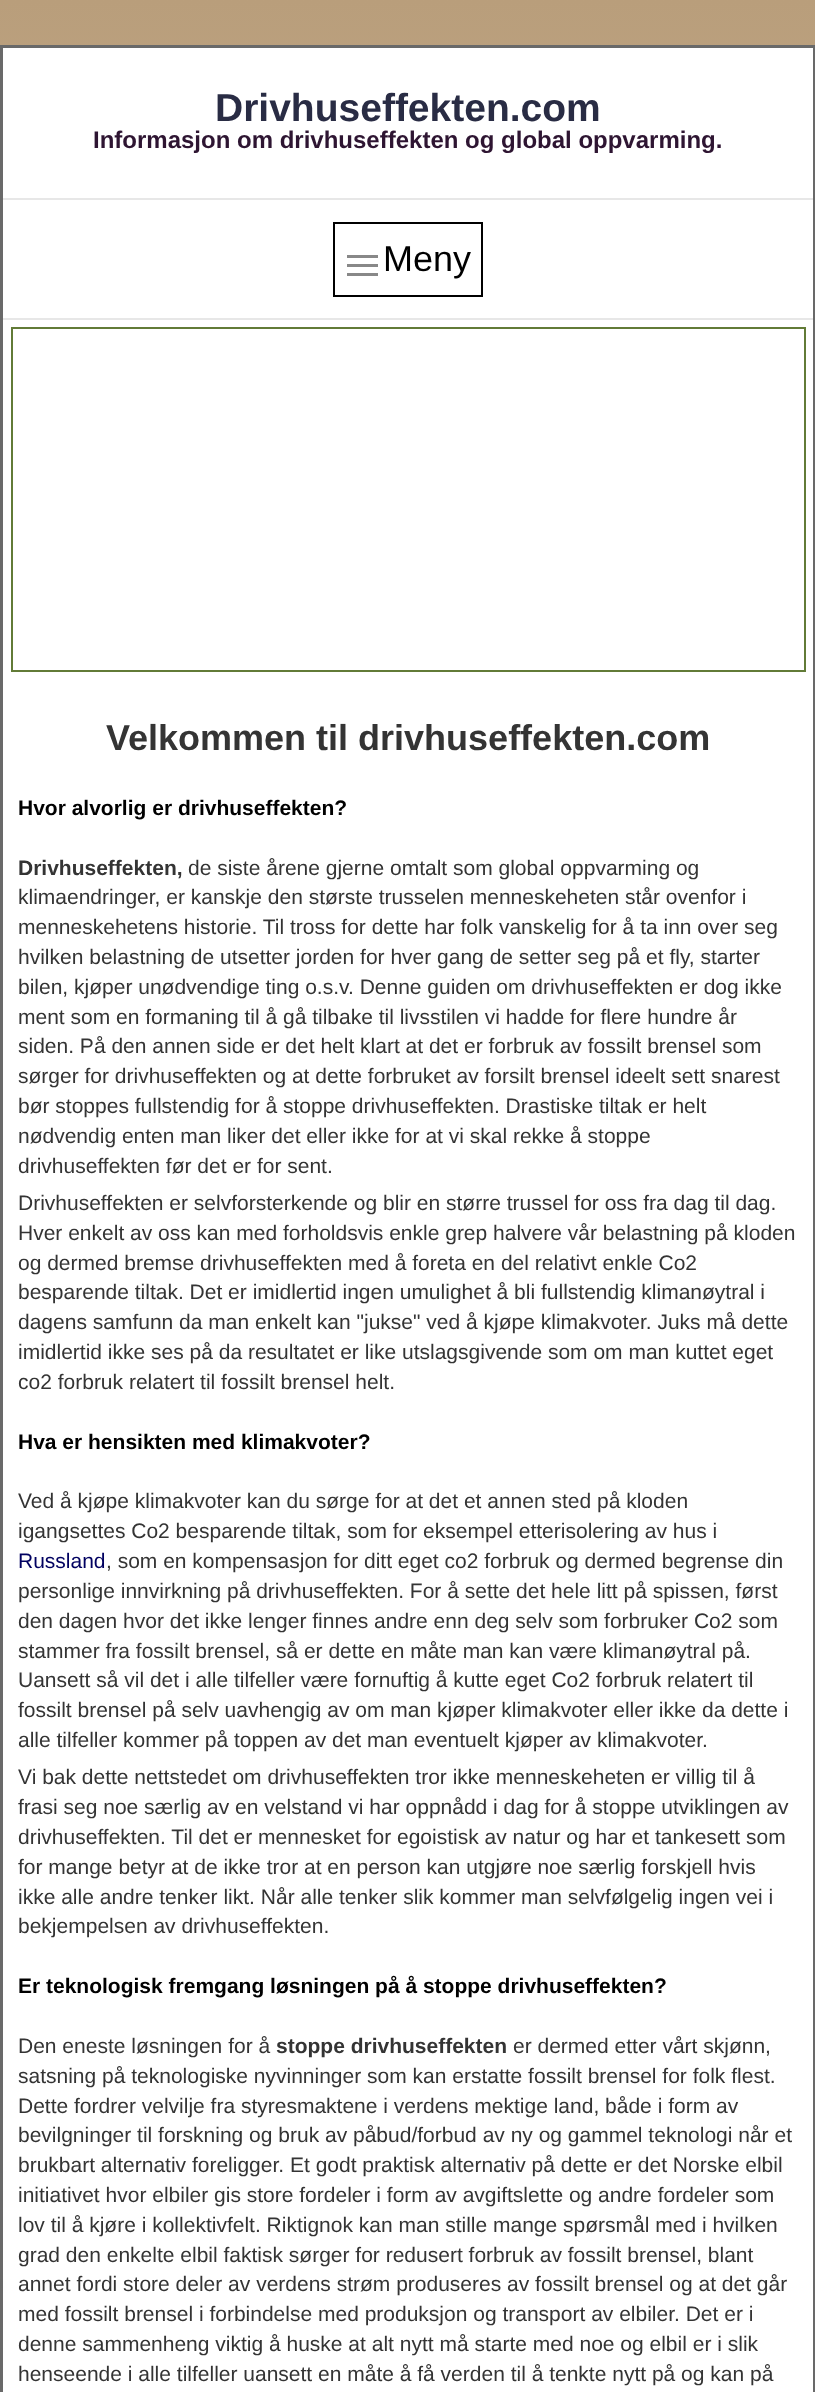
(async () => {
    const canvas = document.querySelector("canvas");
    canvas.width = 815;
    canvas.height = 2392;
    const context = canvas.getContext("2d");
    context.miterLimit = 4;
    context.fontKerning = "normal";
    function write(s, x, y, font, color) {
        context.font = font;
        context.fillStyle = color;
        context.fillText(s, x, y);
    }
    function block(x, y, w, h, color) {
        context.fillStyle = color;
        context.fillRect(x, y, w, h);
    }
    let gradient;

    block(0, 0, 815, 2392, "rgb(255, 255, 255)");
    gradient = context.createLinearGradient(408, 0, 408, 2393);
    gradient.addColorStop(0, "rgb(185, 158, 123)");
    gradient.addColorStop(1, "rgb(238, 231, 223)");
    context.fillStyle = gradient;
    context.fillRect(0, 0, 815, 47);
    context.beginPath();
    context.rect(1.5, 46.5, 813, 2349);
    context.strokeStyle = "rgb(105, 105, 105)";
    context.lineWidth = 3;
    context.stroke();
    write("Drivhuseffekten.com", 215, 121, "bold 39px Liberation Sans", "rgb(41, 44, 68)");
    write("Informasjon om drivhuseffekten og global oppvarming.", 93, 148, "bold 24px Liberation Sans", "rgb(46, 21, 50)");
    block(3, 198, 810, 2, "rgb(231, 231, 231)");
    block(3, 318, 810, 2, "rgb(231, 231, 231)");
    context.strokeStyle = "rgb(0, 0, 0)";
    context.lineWidth = 2;
    context.strokeRect(334, 223, 148, 73);
    block(347, 255, 31, 3, "rgb(136, 136, 136)");
    block(347, 264, 31, 3, "rgb(136, 136, 136)");
    block(347, 273, 31, 3, "rgb(136, 136, 136)");
    write("Meny", 383, 271, "36px Liberation Sans", "rgb(0, 0, 0)");
    context.strokeStyle = "rgb(98, 123, 55)";
    context.strokeRect(12, 328, 793, 343);
    write("Velkommen til drivhuseffekten.com", 106, 750, "bold 36px Liberation Sans", "rgb(52, 52, 52)");
    write("Hvor alvorlig er drivhuseffekten?", 18, 815, "bold 21px Liberation Sans", "rgb(0, 0, 0)");
    write("Drivhuseffekten,", 18, 875, "bold 21px Liberation Sans", "rgb(52, 52, 52)");
    write("de siste årene gjerne omtalt som global oppvarming og", 188, 875, "21px Liberation Sans", "rgb(52, 52, 52)");
    write("klimaendringer, er kanskje den største trusselen menneskeheten står ovenfor i", 18, 904, "21px Liberation Sans", "rgb(52, 52, 52)");
    write("menneskehetens historie. Til tross for dette har folk vanskelig for å ta inn over seg", 18, 934, "21px Liberation Sans", "rgb(52, 52, 52)");
    write("hvilken belastning de utsetter jorden for hver gang de setter seg på et fly, starter", 18, 964, "21px Liberation Sans", "rgb(52, 52, 52)");
    write("bilen, kjøper unødvendige ting o.s.v. Denne guiden om drivhuseffekten er dog ikke", 18, 994, "21px Liberation Sans", "rgb(52, 52, 52)");
    write("ment som en formaning til å gå tilbake til livsstilen vi hadde for flere hundre år", 18, 1024, "21px Liberation Sans", "rgb(52, 52, 52)");
    write("siden. På den annen side er det helt klart at det er forbruk av fossilt brensel som", 18, 1053, "21px Liberation Sans", "rgb(52, 52, 52)");
    write("sørger for drivhuseffekten og at dette forbruket av forsilt brensel ideelt sett snarest", 18, 1083, "21px Liberation Sans", "rgb(52, 52, 52)");
    write("bør stoppes fullstendig for å stoppe drivhuseffekten. Drastiske tiltak er helt", 18, 1113, "21px Liberation Sans", "rgb(52, 52, 52)");
    write("nødvendig enten man liker det eller ikke for at vi skal rekke å stoppe", 18, 1143, "21px Liberation Sans", "rgb(52, 52, 52)");
    write("drivhuseffekten før det er for sent.", 18, 1173, "21px Liberation Sans", "rgb(52, 52, 52)");
    write("Drivhuseffekten er selvforsterkende og blir en større trussel for oss fra dag til dag.", 18, 1210, "21px Liberation Sans", "rgb(52, 52, 52)");
    write("Hver enkelt av oss kan med forholdsvis enkle grep halvere vår belastning på kloden", 18, 1240, "21px Liberation Sans", "rgb(52, 52, 52)");
    write("og dermed bremse drivhuseffekten med å foreta en del relativt enkle Co2", 18, 1270, "21px Liberation Sans", "rgb(52, 52, 52)");
    write("besparende tiltak. Det er imidlertid ingen umulighet å bli fullstendig klimanøytral i", 18, 1299, "21px Liberation Sans", "rgb(52, 52, 52)");
    write("dagens samfunn da man enkelt kan \"jukse\" ved å kjøpe klimakvoter. Juks må dette", 18, 1329, "21px Liberation Sans", "rgb(52, 52, 52)");
    write("imidlertid ikke ses på da resultatet er like utslagsgivende som om man kuttet eget", 18, 1359, "21px Liberation Sans", "rgb(52, 52, 52)");
    write("co2 forbruk relatert til fossilt brensel helt.", 18, 1389, "21px Liberation Sans", "rgb(52, 52, 52)");
    write("Hva er hensikten med klimakvoter?", 18, 1449, "bold 21px Liberation Sans", "rgb(0, 0, 0)");
    write("Ved å kjøpe klimakvoter kan du sørge for at det et annen sted på kloden", 18, 1508, "21px Liberation Sans", "rgb(52, 52, 52)");
    write("igangsettes Co2 besparende tiltak, som for eksempel etterisolering av hus i", 18, 1538, "21px Liberation Sans", "rgb(52, 52, 52)");
    write("Russland", 18, 1568, "21px Liberation Sans", "rgb(0, 0, 96)");
    write(", som en kompensasjon for ditt eget co2 forbruk og dermed begrense din", 106, 1568, "21px Liberation Sans", "rgb(52, 52, 52)");
    write("personlige innvirkning på drivhuseffekten. For å sette det hele litt på spissen, først", 18, 1598, "21px Liberation Sans", "rgb(52, 52, 52)");
    write("den dagen hvor det ikke lenger finnes andre enn deg selv som forbruker Co2 som", 18, 1628, "21px Liberation Sans", "rgb(52, 52, 52)");
    write("stammer fra fossilt brensel, så er dette en måte man kan være klimanøytral på.", 18, 1658, "21px Liberation Sans", "rgb(52, 52, 52)");
    write("Uansett så vil det i alle tilfeller være fornuftig å kutte eget Co2 forbruk relatert til", 18, 1687, "21px Liberation Sans", "rgb(52, 52, 52)");
    write("fossilt brensel på selv uavhengig av om man kjøper klimakvoter eller ikke da dette i", 18, 1717, "21px Liberation Sans", "rgb(52, 52, 52)");
    write("alle tilfeller kommer på toppen av det man eventuelt kjøper av klimakvoter.", 18, 1747, "21px Liberation Sans", "rgb(52, 52, 52)");
    write("Vi bak dette nettstedet om drivhuseffekten tror ikke menneskeheten er villig til å", 18, 1784, "21px Liberation Sans", "rgb(52, 52, 52)");
    write("frasi seg noe særlig av en velstand vi har oppnådd i dag for å stoppe utviklingen av", 18, 1814, "21px Liberation Sans", "rgb(52, 52, 52)");
    write("drivhuseffekten. Til det er mennesket for egoistisk av natur og har et tankesett som", 18, 1844, "21px Liberation Sans", "rgb(52, 52, 52)");
    write("for mange betyr at de ikke tror at en person kan utgjøre noe særlig forskjell hvis", 18, 1874, "21px Liberation Sans", "rgb(52, 52, 52)");
    write("ikke alle andre tenker likt. Når alle tenker slik kommer man selvfølgelig ingen vei i", 18, 1904, "21px Liberation Sans", "rgb(52, 52, 52)");
    write("bekjempelsen av drivhuseffekten.", 18, 1933, "21px Liberation Sans", "rgb(52, 52, 52)");
    write("Er teknologisk fremgang løsningen på å stoppe drivhuseffekten?", 18, 1993, "bold 21px Liberation Sans", "rgb(0, 0, 0)");
    write("Den eneste løsningen for å", 18, 2053, "21px Liberation Sans", "rgb(52, 52, 52)");
    write("stoppe drivhuseffekten", 276, 2053, "bold 21px Liberation Sans", "rgb(52, 52, 52)");
    write("er dermed etter vårt skjønn,", 513, 2053, "21px Liberation Sans", "rgb(52, 52, 52)");
    write("satsning på teknologiske nyvinninger som kan erstatte fossilt brensel for folk flest.", 18, 2083, "21px Liberation Sans", "rgb(52, 52, 52)");
    write("Dette fordrer velvilje fra styresmaktene i verdens mektige land, både i form av", 18, 2113, "21px Liberation Sans", "rgb(52, 52, 52)");
    write("bevilgninger til forskning og bruk av påbud/forbud av ny og gammel teknologi når et", 18, 2142, "21px Liberation Sans", "rgb(52, 52, 52)");
    write("brukbart alternativ foreligger. Et godt praktisk alternativ på dette er det Norske elbil", 18, 2172, "21px Liberation Sans", "rgb(52, 52, 52)");
    write("initiativet hvor elbiler gis store fordeler i form av avgiftslette og andre fordeler som", 18, 2202, "21px Liberation Sans", "rgb(52, 52, 52)");
    write("lov til å kjøre i kollektivfelt. Riktignok kan man stille mange spørsmål med i hvilken", 18, 2232, "21px Liberation Sans", "rgb(52, 52, 52)");
    write("grad den enkelte elbil faktisk sørger for redusert forbruk av fossilt brensel, blant", 18, 2262, "21px Liberation Sans", "rgb(52, 52, 52)");
    write("annet fordi store deler av verdens strøm produseres av fossilt brensel og at det går", 18, 2291, "21px Liberation Sans", "rgb(52, 52, 52)");
    write("med fossilt brensel i forbindelse med produksjon og transport av elbiler. Det er i", 18, 2321, "21px Liberation Sans", "rgb(52, 52, 52)");
    write("denne sammenheng viktig å huske at alt nytt må starte med noe og elbil er i slik", 18, 2351, "21px Liberation Sans", "rgb(52, 52, 52)");
    write("henseende i alle tilfeller uansett en måte å få verden til å tenkte nytt på og kan på", 18, 2381, "21px Liberation Sans", "rgb(52, 52, 52)");
})();
